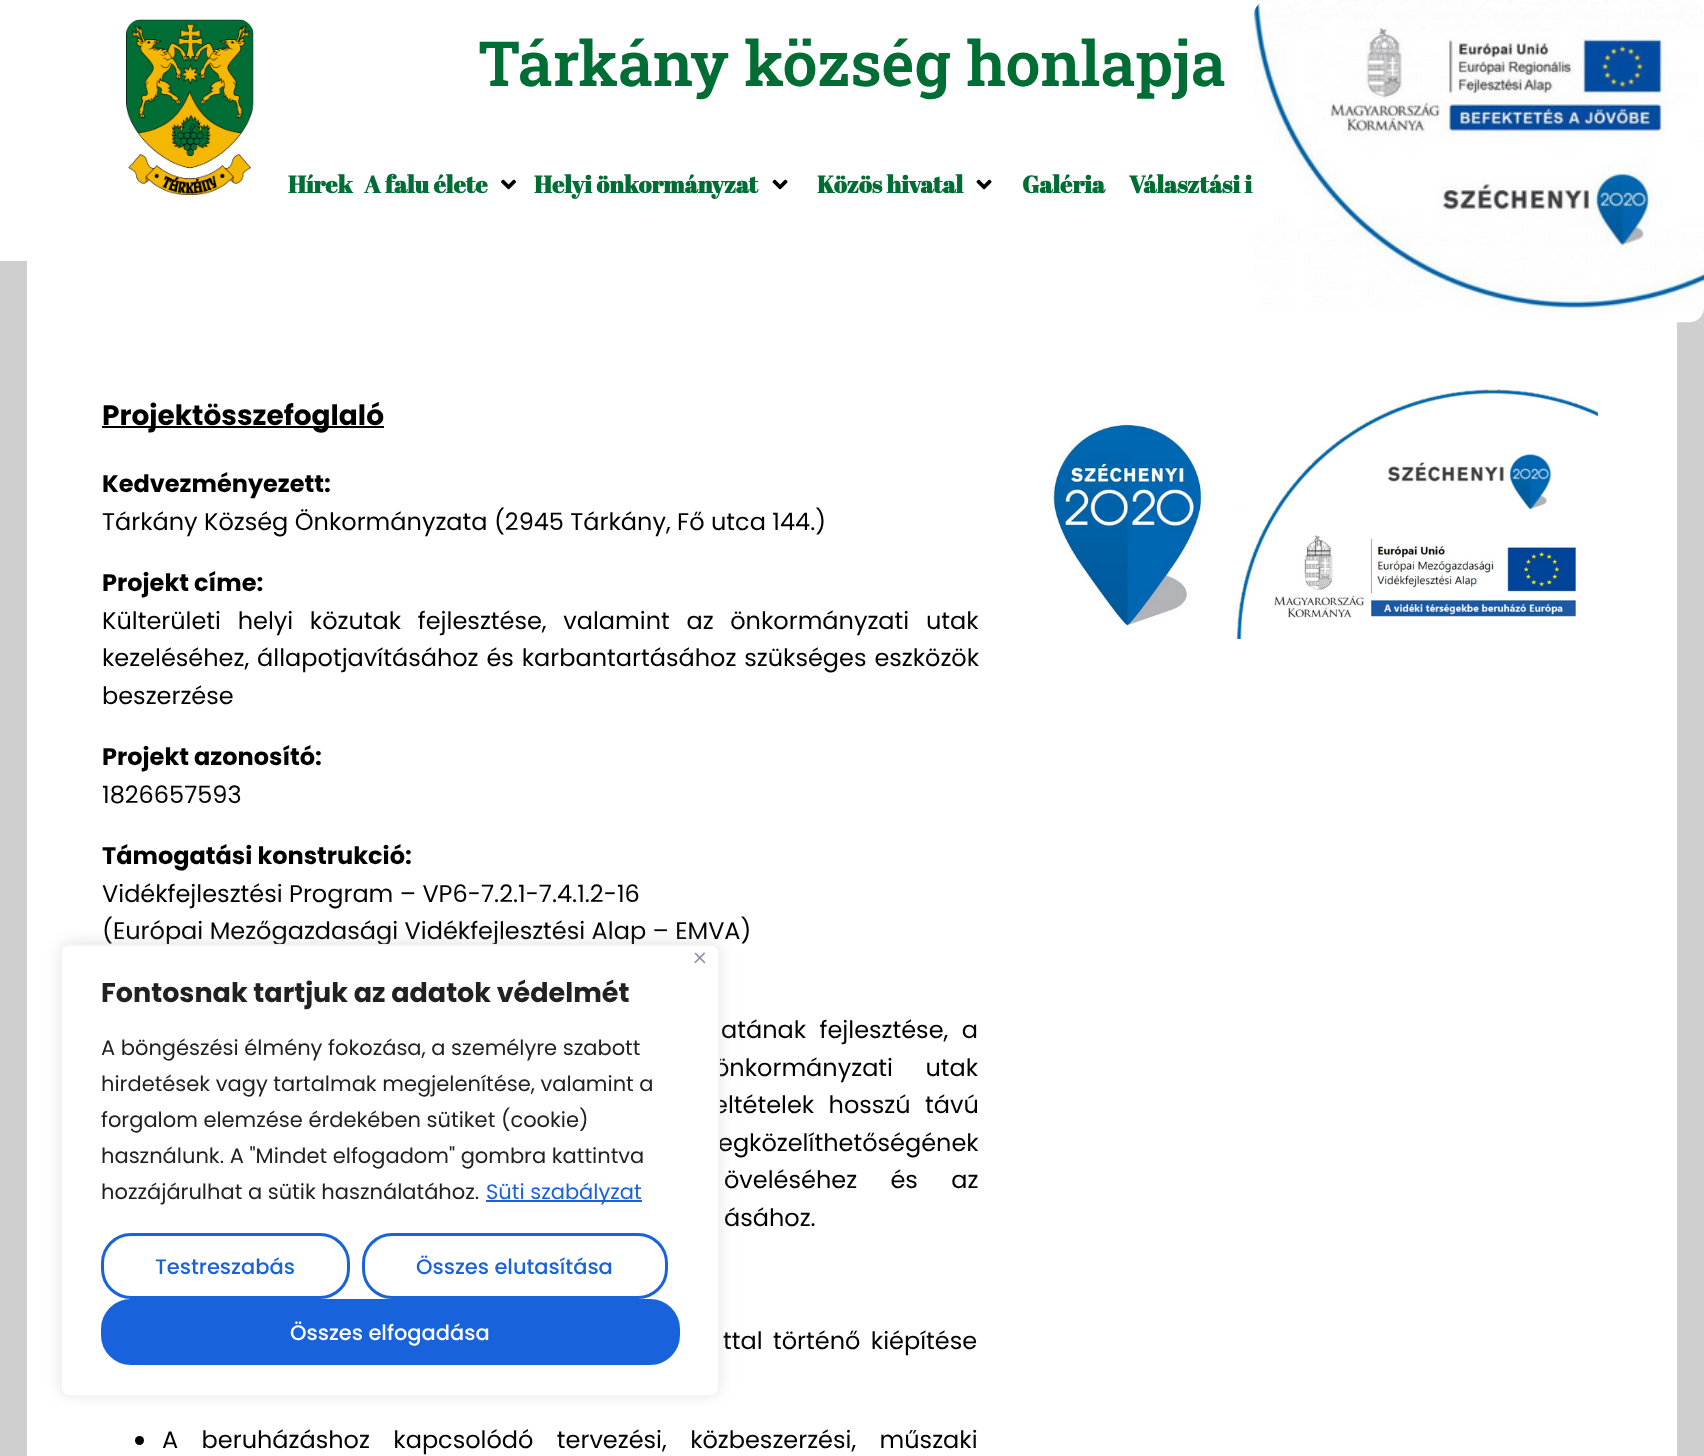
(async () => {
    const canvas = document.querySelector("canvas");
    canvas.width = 1704;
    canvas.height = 1456;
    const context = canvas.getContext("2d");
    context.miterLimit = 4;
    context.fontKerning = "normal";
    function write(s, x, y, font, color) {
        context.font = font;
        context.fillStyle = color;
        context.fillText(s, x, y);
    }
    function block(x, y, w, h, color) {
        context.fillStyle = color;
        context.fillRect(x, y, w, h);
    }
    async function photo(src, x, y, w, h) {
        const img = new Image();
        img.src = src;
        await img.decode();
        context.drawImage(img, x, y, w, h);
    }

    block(0, 0, 1704, 1456, "rgb(207, 207, 207)");
    block(0, 0, 1704, 261, "rgb(255, 255, 255)");
    await photo("media/1.png", 126, 19, 128, 176);
    write("Tárkány község honlapja", 478, 86, "600 62.4px Roboto Slab", "rgb(0, 109, 52)");
    block(27, 261, 1650, 1195, "rgb(255, 255, 255)");
    await photo("media/2.png", 1254, 0, 450, 323);
    write("Hírek", 288, 193, "bold 24px Abril Fatface", "rgb(0, 109, 52)");
    write("A falu élete", 364, 193, "bold 24px Abril Fatface", "rgb(0, 109, 52)");
    await photo("media/3.png", 501, 179, 15, 11);
    write("Helyi önkormányzat", 534, 193, "bold 24px Abril Fatface", "rgb(0, 109, 52)");
    await photo("media/4.png", 772, 179, 16, 11);
    write("Közös hivatal", 817, 193, "bold 24px Abril Fatface", "rgb(0, 109, 52)");
    await photo("media/4.png", 976, 179, 16, 11);
    write("Galéria", 1022, 193, "bold 24px Abril Fatface", "rgb(0, 109, 52)");
    write("Választási i", 1129, 193, "bold 24px Abril Fatface", "rgb(0, 109, 52)");
    block(102, 426, 282, 2, "rgb(0, 0, 0)");
    write("Projektösszefoglaló", 102, 425, "bold 28px Poppins", "rgb(0, 0, 0)");
    write("Kedvezményezett:", 102, 492, "bold 24px Poppins", "rgb(0, 0, 0)");
    write("Tárkány Község Önkormányzata (2945 Tárkány, Fő utca 144.)", 102, 530, "24px Poppins", "rgb(0, 0, 0)");
    write("Projekt címe:", 102, 591, "bold 24px Poppins", "rgb(0, 0, 0)");
    context.wordSpacing = "10.25px";
    write("Külterületi helyi közutak fejlesztése, valamint az önkormányzati utak", 102, 629, "24px Poppins", "rgb(0, 0, 0)");
    context.wordSpacing = "1.5px";
    write("kezeléséhez, állapotjavításához és karbantartásához szükséges eszközök", 102, 666, "24px Poppins", "rgb(0, 0, 0)");
    context.wordSpacing = "0px";
    write("beszerzése", 102, 704, "24px Poppins", "rgb(0, 0, 0)");
    write("Projekt azonosító:", 102, 765, "bold 24px Poppins", "rgb(0, 0, 0)");
    write("1826657593", 102, 803, "24px Poppins", "rgb(0, 0, 0)");
    write("Támogatási konstrukció:", 102, 864, "bold 24px Poppins", "rgb(0, 0, 0)");
    write("Vidékfejlesztési Program – VP6-7.2.1-7.4.1.2-16", 102, 902, "24px Poppins", "rgb(0, 0, 0)");
    write("(Európai Mezőgazdasági Vidékfejlesztési Alap – EMVA)", 102, 939, "24px Poppins", "rgb(0, 0, 0)");
    context.wordSpacing = "7px";
    write("atának fejlesztése, a", 721, 1038, "24px Poppins", "rgb(0, 0, 0)");
    context.wordSpacing = "26px";
    write("önkormányzati utak", 714, 1076, "24px Poppins", "rgb(0, 0, 0)");
    context.wordSpacing = "8px";
    write("eltételek hosszú távú", 713, 1113, "24px Poppins", "rgb(0, 0, 0)");
    write("egközelíthetőségének", 718, 1151, "24px Poppins", "rgb(0, 0, 0)");
    context.wordSpacing = "27px";
    write("öveléséhez és az", 724, 1188, "24px Poppins", "rgb(0, 0, 0)");
    context.wordSpacing = "0px";
    write("ásához.", 724, 1226, "24px Poppins", "rgb(0, 0, 0)");
    context.wordSpacing = "4px";
    write("ttal történő kiépítése", 723, 1349, "24px Poppins", "rgb(0, 0, 0)");
    context.beginPath();
    context.arc(139.5, 1440.5, 4.5, 0, Math.PI * 2);
    context.fill();
    context.wordSpacing = "17px";
    write("A beruházáshoz kapcsolódó tervezési, közbeszerzési, műszaki", 162, 1448, "24px Poppins", "rgb(0, 0, 0)");
    await photo("media/5.png", 1052, 389, 546, 250);
    context.fillStyle = "rgba(172, 171, 171, 0.3)";
    context.filter = "blur(7.5px)";
    context.beginPath();
    context.roundRect(60, 942, 660, 453, 9);
    context.fill();
    context.filter = "none";
    context.fillStyle = "rgb(255, 255, 255)";
    context.beginPath();
    context.roundRect(61, 945, 658, 451, 8);
    context.fill();
    context.strokeStyle = "rgb(244, 244, 244)";
    context.lineWidth = 2;
    context.stroke();
    await photo("media/6.png", 694, 952, 12, 12);
    context.wordSpacing = "0px";
    write("Fontosnak tartjuk az adatok védelmét", 101, 1002, "bold 27px Poppins", "rgb(33, 33, 33)");
    write("A böngészési élmény fokozása, a személyre szabott", 101, 1055, "21px Poppins", "rgb(33, 33, 33)");
    write("hirdetések vagy tartalmak megjelenítése, valamint a", 101, 1091, "21px Poppins", "rgb(33, 33, 33)");
    write("forgalom elemzése érdekében sütiket (cookie)", 101, 1127, "21px Poppins", "rgb(33, 33, 33)");
    write("használunk. A \"Mindet elfogadom\" gombra kattintva", 101, 1163, "21px Poppins", "rgb(33, 33, 33)");
    write("hozzájárulhat a sütik használatához.", 101, 1199, "21px Poppins", "rgb(33, 33, 33)");
    block(486, 1200, 156, 2, "rgb(24, 99, 220)");
    write("Süti szabályzat", 486, 1199, "21px Poppins", "rgb(24, 99, 220)");
    context.beginPath();
    context.roundRect(102.5, 1234.5, 246, 63, 28.5);
    context.strokeStyle = "rgb(24, 99, 220)";
    context.lineWidth = 3;
    context.stroke();
    write("Testreszabás", 155, 1274, "500 21px Poppins", "rgb(24, 99, 220)");
    context.beginPath();
    context.roundRect(363.5, 1234.5, 303, 63, 28.5);
    context.stroke();
    write("Összes elutasítása", 416, 1274, "500 21px Poppins", "rgb(24, 99, 220)");
    context.beginPath();
    context.roundRect(102.5, 1300.5, 576, 63, 28.5);
    context.fill();
    context.stroke();
    write("Összes elfogadása", 290, 1340, "500 21px Poppins", "rgb(255, 255, 255)");
})();
